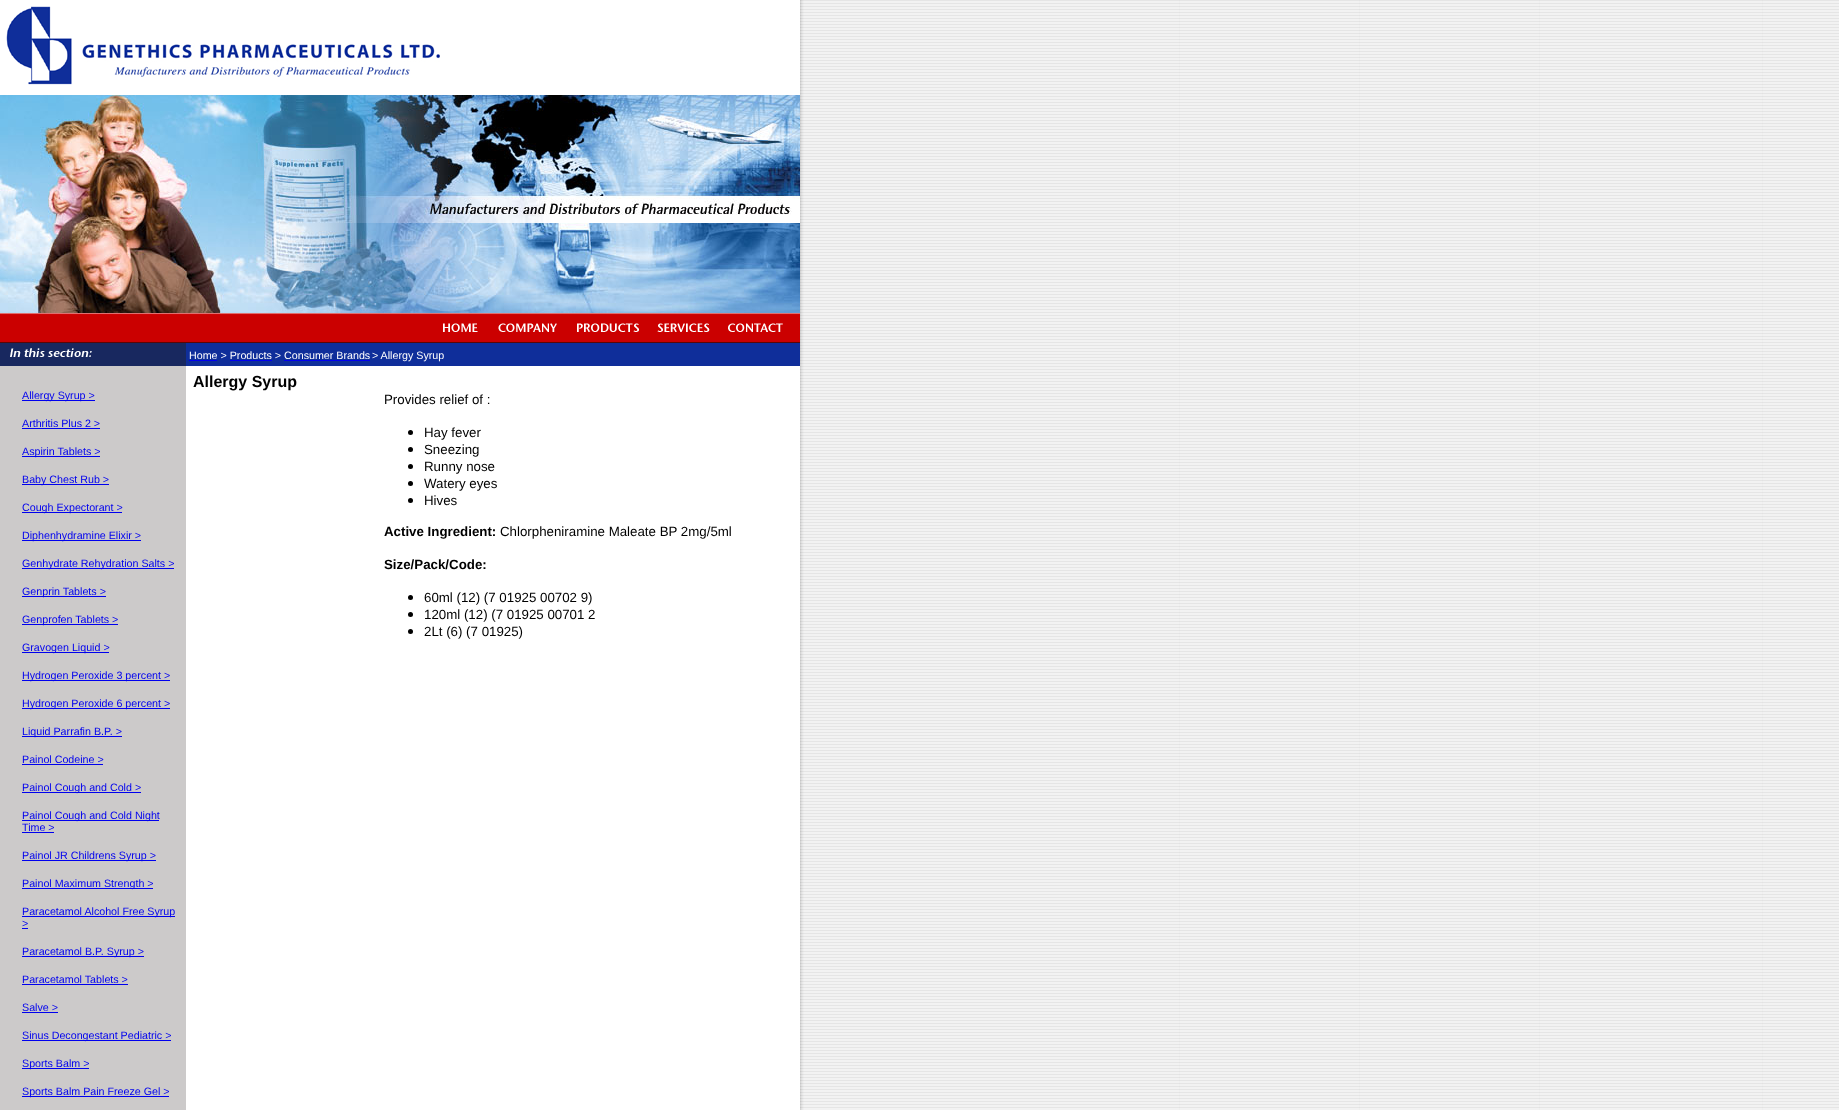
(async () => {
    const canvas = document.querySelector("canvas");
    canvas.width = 1839;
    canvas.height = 1110;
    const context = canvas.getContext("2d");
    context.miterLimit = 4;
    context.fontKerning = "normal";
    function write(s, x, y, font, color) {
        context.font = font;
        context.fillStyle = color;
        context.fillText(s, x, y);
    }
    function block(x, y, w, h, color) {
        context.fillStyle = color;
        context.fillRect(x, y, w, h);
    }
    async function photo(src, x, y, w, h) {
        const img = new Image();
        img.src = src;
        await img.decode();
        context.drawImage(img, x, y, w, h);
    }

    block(0, 0, 1839, 1110, "rgb(255, 255, 255)");
    await photo("media/1.png", 800, 0, 1039, 1110);
    await photo("media/2.png", 6, 6, 434, 79);
    await photo("media/3.png", 0, 95, 800, 218);
    await photo("media/4.png", 0, 313, 800, 30);
    await photo("media/5.png", 443, 323, 35, 9);
    await photo("media/6.png", 498, 323, 59, 9);
    await photo("media/7.png", 577, 323, 62, 9);
    await photo("media/8.png", 657, 323, 53, 9);
    await photo("media/9.png", 728, 323, 55, 9);
    block(0, 366, 186, 744, "rgb(204, 202, 202)");
    await photo("media/10.png", 0, 343, 186, 23);
    block(22, 400, 73, 1, "rgb(0, 0, 238)");
    write("Allergy Syrup >", 22, 399, "10.7px Liberation Sans", "rgb(0, 0, 238)");
    write("Arthritis Plus 2 >", 22, 427, "10.7px Liberation Sans", "rgb(0, 0, 238)");
    block(22, 428, 78, 1, "rgb(0, 0, 238)");
    block(22, 456, 78, 1, "rgb(0, 0, 238)");
    write("Aspirin Tablets >", 22, 455, "10.7px Liberation Sans", "rgb(0, 0, 238)");
    block(22, 484, 87, 1, "rgb(0, 0, 238)");
    write("Baby Chest Rub >", 22, 483, "10.7px Liberation Sans", "rgb(0, 0, 238)");
    block(22, 512, 100, 1, "rgb(0, 0, 238)");
    write("Cough Expectorant >", 22, 511, "10.7px Liberation Sans", "rgb(0, 0, 238)");
    block(22, 540, 119, 1, "rgb(0, 0, 238)");
    write("Diphenhydramine Elixir >", 22, 539, "10.7px Liberation Sans", "rgb(0, 0, 238)");
    block(22, 568, 152, 1, "rgb(0, 0, 238)");
    write("Genhydrate Rehydration Salts >", 22, 567, "10.7px Liberation Sans", "rgb(0, 0, 238)");
    block(22, 596, 84, 1, "rgb(0, 0, 238)");
    write("Genprin Tablets >", 22, 595, "10.7px Liberation Sans", "rgb(0, 0, 238)");
    block(22, 624, 96, 1, "rgb(0, 0, 238)");
    write("Genprofen Tablets >", 22, 623, "10.7px Liberation Sans", "rgb(0, 0, 238)");
    block(22, 652, 87, 1, "rgb(0, 0, 238)");
    write("Gravogen Liquid >", 22, 651, "10.7px Liberation Sans", "rgb(0, 0, 238)");
    block(22, 680, 148, 1, "rgb(0, 0, 238)");
    write("Hydrogen Peroxide 3 percent >", 22, 679, "10.7px Liberation Sans", "rgb(0, 0, 238)");
    block(22, 708, 148, 1, "rgb(0, 0, 238)");
    write("Hydrogen Peroxide 6 percent >", 22, 707, "10.7px Liberation Sans", "rgb(0, 0, 238)");
    block(22, 736, 100, 1, "rgb(0, 0, 238)");
    write("Liquid Parrafin B.P. >", 22, 735, "10.7px Liberation Sans", "rgb(0, 0, 238)");
    write("Painol Codeine >", 22, 763, "10.7px Liberation Sans", "rgb(0, 0, 238)");
    block(22, 764, 81, 1, "rgb(0, 0, 238)");
    block(22, 792, 119, 1, "rgb(0, 0, 238)");
    write("Painol Cough and Cold >", 22, 791, "10.7px Liberation Sans", "rgb(0, 0, 238)");
    block(22, 820, 137, 1, "rgb(0, 0, 238)");
    write("Painol Cough and Cold Night", 22, 819, "10.7px Liberation Sans", "rgb(0, 0, 238)");
    write("Time >", 22, 831, "10.7px Liberation Sans", "rgb(0, 0, 238)");
    block(22, 832, 32, 1, "rgb(0, 0, 238)");
    block(22, 860, 134, 1, "rgb(0, 0, 238)");
    write("Painol JR Childrens Syrup >", 22, 859, "10.7px Liberation Sans", "rgb(0, 0, 238)");
    block(22, 888, 131, 1, "rgb(0, 0, 238)");
    write("Painol Maximum Strength >", 22, 887, "10.7px Liberation Sans", "rgb(0, 0, 238)");
    block(22, 916, 153, 1, "rgb(0, 0, 238)");
    write("Paracetamol Alcohol Free Syrup", 22, 915, "10.7px Liberation Sans", "rgb(0, 0, 238)");
    write(">", 22, 927, "10.7px Liberation Sans", "rgb(0, 0, 238)");
    block(22, 928, 6, 1, "rgb(0, 0, 238)");
    block(22, 956, 122, 1, "rgb(0, 0, 238)");
    write("Paracetamol B.P. Syrup >", 22, 955, "10.7px Liberation Sans", "rgb(0, 0, 238)");
    write("Paracetamol Tablets >", 22, 983, "10.7px Liberation Sans", "rgb(0, 0, 238)");
    block(22, 984, 106, 1, "rgb(0, 0, 238)");
    write("Salve >", 22, 1011, "10.7px Liberation Sans", "rgb(0, 0, 238)");
    block(22, 1012, 36, 1, "rgb(0, 0, 238)");
    block(22, 1040, 149, 1, "rgb(0, 0, 238)");
    write("Sinus Decongestant Pediatric >", 22, 1039, "10.7px Liberation Sans", "rgb(0, 0, 238)");
    block(22, 1068, 67, 1, "rgb(0, 0, 238)");
    write("Sports Balm >", 22, 1067, "10.7px Liberation Sans", "rgb(0, 0, 238)");
    block(22, 1096, 147, 1, "rgb(0, 0, 238)");
    write("Sports Balm Pain Freeze Gel >", 22, 1095, "10.7px Liberation Sans", "rgb(0, 0, 238)");
    block(186, 343, 614, 23, "rgb(15, 46, 154)");
    write("Home > Products > Consumer Brands", 189, 359, "10.7px Liberation Sans", "rgb(255, 255, 255)");
    block(189, 360, 28, 1, "rgb(0, 0, 238)");
    write("> Allergy Syrup", 372, 359, "10.7px Liberation Sans", "rgb(255, 255, 255)");
    block(230, 360, 42, 1, "rgb(0, 0, 238)");
    block(284, 360, 86, 1, "rgb(0, 0, 238)");
    write("Allergy Syrup", 193, 387, "bold 16px Liberation Sans", "rgb(0, 0, 0)");
    write("Provides relief of :", 384, 404, "13.3px Liberation Sans", "rgb(0, 0, 0)");
    context.beginPath();
    context.arc(410.5, 432.5, 2.5, 0, Math.PI * 2);
    context.fill();
    write("Hay fever", 424, 437, "13.3px Liberation Sans", "rgb(0, 0, 0)");
    context.beginPath();
    context.arc(410.5, 449.5, 2.5, 0, Math.PI * 2);
    context.fill();
    write("Sneezing", 424, 454, "13.3px Liberation Sans", "rgb(0, 0, 0)");
    context.beginPath();
    context.arc(410.5, 466.5, 2.5, 0, Math.PI * 2);
    context.fill();
    write("Runny nose", 424, 471, "13.3px Liberation Sans", "rgb(0, 0, 0)");
    context.beginPath();
    context.arc(410.5, 483.5, 2.5, 0, Math.PI * 2);
    context.fill();
    write("Watery eyes", 424, 488, "13.3px Liberation Sans", "rgb(0, 0, 0)");
    context.beginPath();
    context.arc(410.5, 500.5, 2.5, 0, Math.PI * 2);
    context.fill();
    write("Hives", 424, 505, "13.3px Liberation Sans", "rgb(0, 0, 0)");
    write("Active Ingredient:", 384, 536, "bold 13.3px Liberation Sans", "rgb(0, 0, 0)");
    write("Chlorpheniramine Maleate BP 2mg/5ml", 500, 536, "13.3px Liberation Sans", "rgb(0, 0, 0)");
    write("Size/Pack/Code:", 384, 569, "bold 13.3px Liberation Sans", "rgb(0, 0, 0)");
    context.beginPath();
    context.arc(410.5, 597.5, 2.5, 0, Math.PI * 2);
    context.fill();
    write("60ml (12) (7 01925 00702 9)", 424, 602, "13.3px Liberation Sans", "rgb(0, 0, 0)");
    context.beginPath();
    context.arc(410.5, 614.5, 2.5, 0, Math.PI * 2);
    context.fill();
    write("120ml (12) (7 01925 00701 2", 424, 619, "13.3px Liberation Sans", "rgb(0, 0, 0)");
    context.beginPath();
    context.arc(410.5, 631.5, 2.5, 0, Math.PI * 2);
    context.fill();
    write("2Lt (6) (7 01925)", 424, 636, "13.3px Liberation Sans", "rgb(0, 0, 0)");
})();
